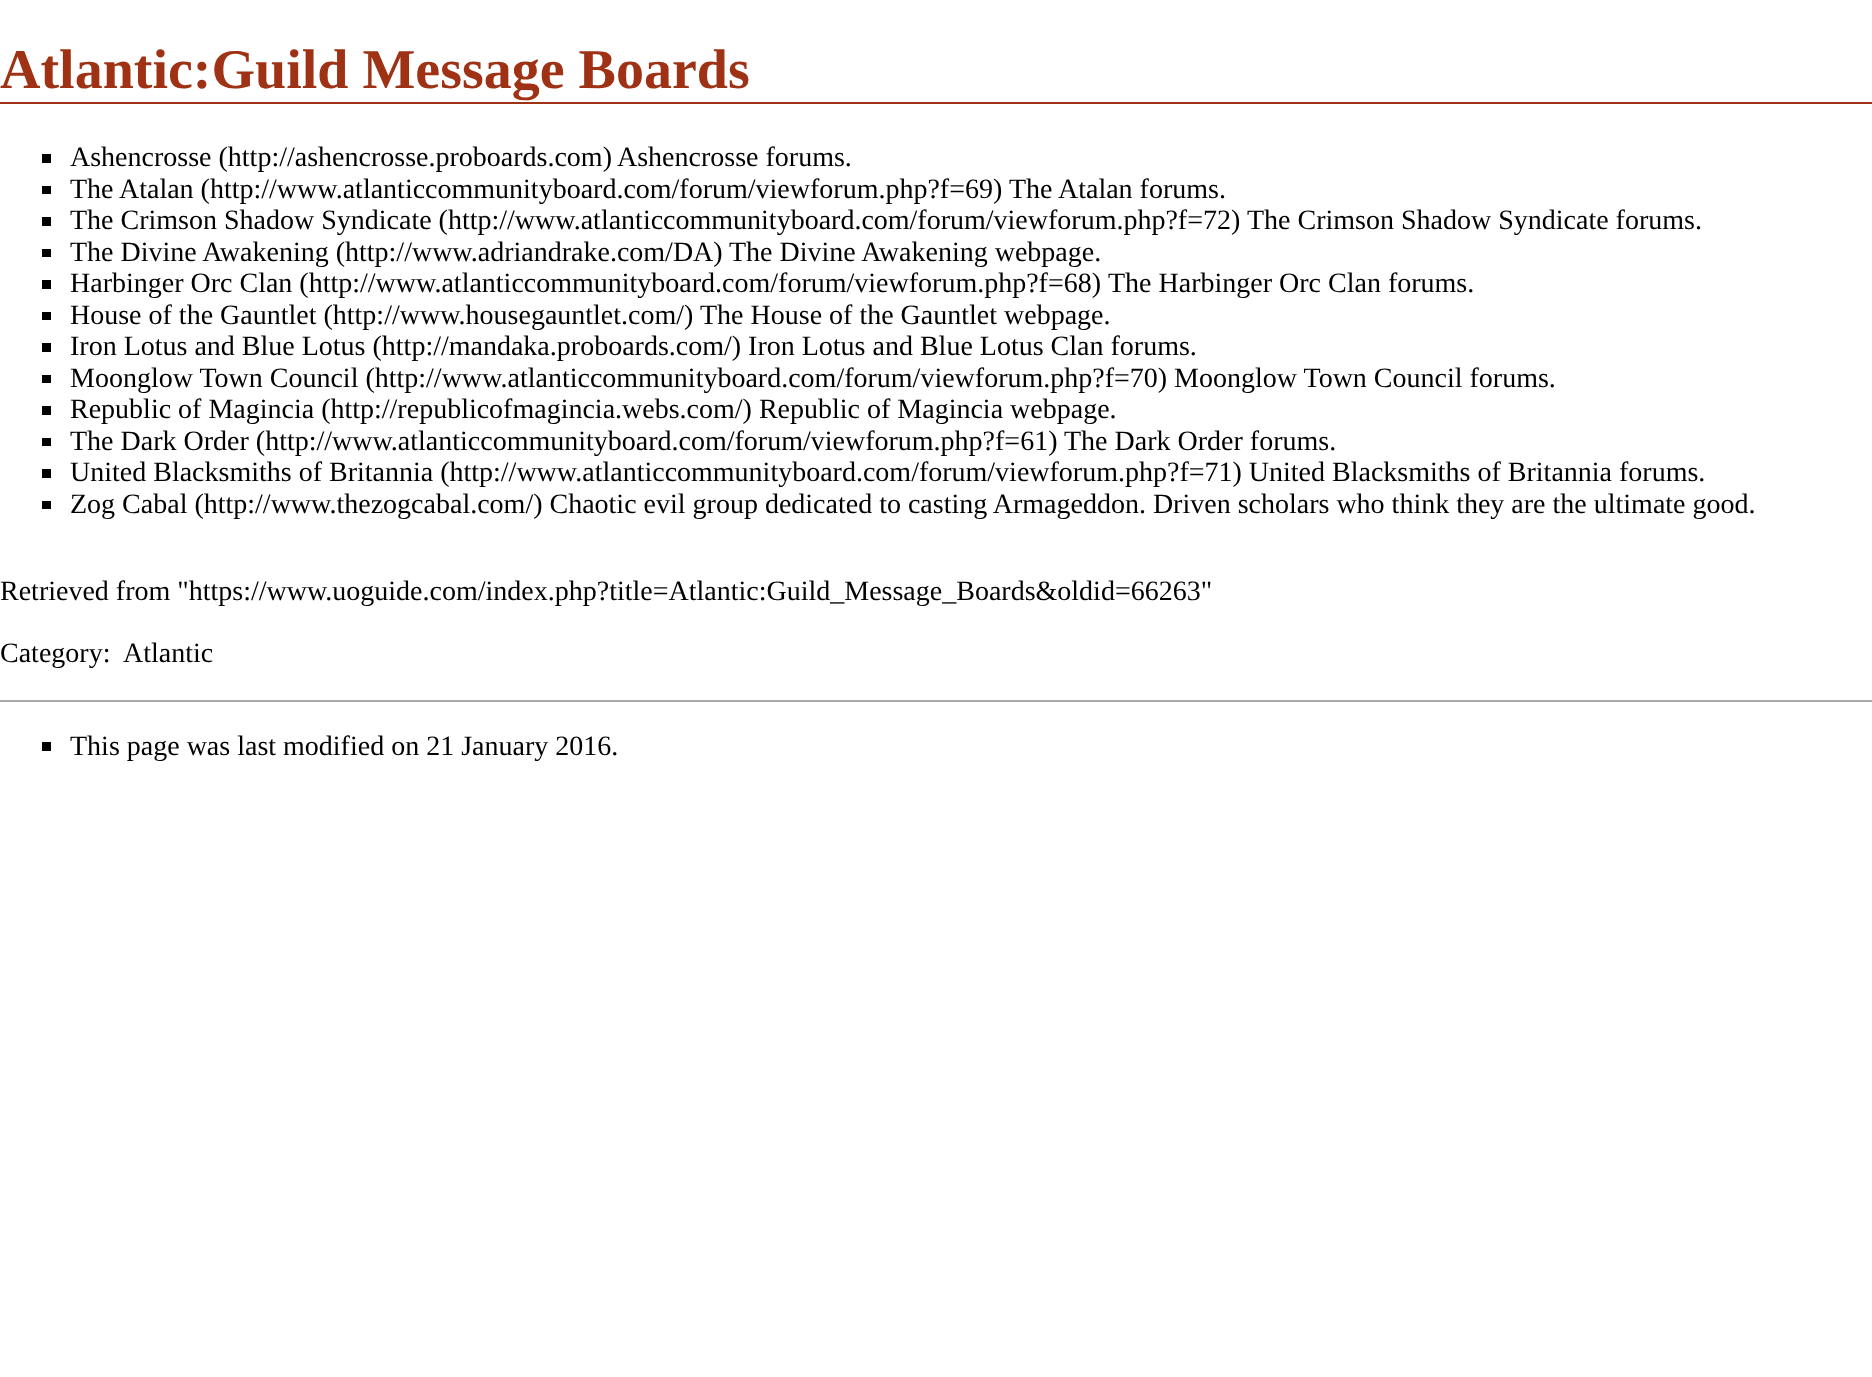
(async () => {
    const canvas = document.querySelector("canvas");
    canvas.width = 1872;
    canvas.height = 1377;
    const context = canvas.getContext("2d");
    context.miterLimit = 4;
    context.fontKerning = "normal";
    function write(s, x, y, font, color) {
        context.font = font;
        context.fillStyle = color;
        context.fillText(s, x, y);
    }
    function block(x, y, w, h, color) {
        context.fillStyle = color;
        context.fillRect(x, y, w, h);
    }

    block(0, 0, 1872, 1377, "rgb(255, 255, 255)");
    block(0, 102, 1872, 2, "rgb(159, 50, 21)");
    write("Atlantic:Guild Message Boards", 0, 88, "bold 56px Liberation Serif", "rgb(159, 50, 21)");
    block(42, 154, 9, 9, "rgb(0, 0, 0)");
    write("Ashencrosse (http://ashencrosse.proboards.com)", 70, 166, "28px Liberation Serif", "rgb(0, 0, 0)");
    write("Ashencrosse forums.", 617, 166, "28px Liberation Serif", "rgb(0, 0, 0)");
    block(42, 186, 9, 8, "rgb(0, 0, 0)");
    write("The Atalan (http://www.atlanticcommunityboard.com/forum/viewforum.php?f=69)", 70, 198, "28px Liberation Serif", "rgb(0, 0, 0)");
    write("The Atalan forums.", 1009, 198, "28px Liberation Serif", "rgb(0, 0, 0)");
    block(42, 217, 9, 9, "rgb(0, 0, 0)");
    write("The Crimson Shadow Syndicate (http://www.atlanticcommunityboard.com/forum/viewforum.php?f=72)", 70, 229, "28px Liberation Serif", "rgb(0, 0, 0)");
    write("The Crimson Shadow Syndicate forums.", 1247, 229, "28px Liberation Serif", "rgb(0, 0, 0)");
    block(42, 249, 9, 8, "rgb(0, 0, 0)");
    write("The Divine Awakening (http://www.adriandrake.com/DA)", 70, 261, "28px Liberation Serif", "rgb(0, 0, 0)");
    write("The Divine Awakening webpage.", 729, 261, "28px Liberation Serif", "rgb(0, 0, 0)");
    block(42, 280, 9, 9, "rgb(0, 0, 0)");
    write("Harbinger Orc Clan (http://www.atlanticcommunityboard.com/forum/viewforum.php?f=68)", 70, 292, "28px Liberation Serif", "rgb(0, 0, 0)");
    write("The Harbinger Orc Clan forums.", 1108, 292, "28px Liberation Serif", "rgb(0, 0, 0)");
    block(42, 312, 9, 8, "rgb(0, 0, 0)");
    write("House of the Gauntlet (http://www.housegauntlet.com/)", 70, 324, "28px Liberation Serif", "rgb(0, 0, 0)");
    write("The House of the Gauntlet webpage.", 700, 324, "28px Liberation Serif", "rgb(0, 0, 0)");
    block(42, 343, 9, 9, "rgb(0, 0, 0)");
    write("Iron Lotus and Blue Lotus (http://mandaka.proboards.com/) Iron Lotus and Blue Lotus Clan forums.", 70, 355, "28px Liberation Serif", "rgb(0, 0, 0)");
    block(42, 375, 9, 8, "rgb(0, 0, 0)");
    write("Moonglow Town Council (http://www.atlanticcommunityboard.com/forum/viewforum.php?f=70) Moonglow Town Council forums.", 70, 387, "28px Liberation Serif", "rgb(0, 0, 0)");
    block(42, 406, 9, 9, "rgb(0, 0, 0)");
    write("Republic of Magincia (http://republicofmagincia.webs.com/) Republic of Magincia webpage.", 70, 418, "28px Liberation Serif", "rgb(0, 0, 0)");
    block(42, 438, 9, 8, "rgb(0, 0, 0)");
    write("The Dark Order (http://www.atlanticcommunityboard.com/forum/viewforum.php?f=61)", 70, 450, "28px Liberation Serif", "rgb(0, 0, 0)");
    write("The Dark Order forums.", 1064, 450, "28px Liberation Serif", "rgb(0, 0, 0)");
    block(42, 469, 9, 9, "rgb(0, 0, 0)");
    write("United Blacksmiths of Britannia (http://www.atlanticcommunityboard.com/forum/viewforum.php?f=71) United Blacksmiths of Britannia forums.", 70, 481, "28px Liberation Serif", "rgb(0, 0, 0)");
    block(42, 501, 9, 8, "rgb(0, 0, 0)");
    write("Zog Cabal (http://www.thezogcabal.com/) Chaotic evil group dedicated to casting Armageddon. Driven scholars who think they are the ultimate good.", 70, 513, "28px Liberation Serif", "rgb(0, 0, 0)");
    write("Retrieved from \"https://www.uoguide.com/index.php?title=Atlantic:Guild_Message_Boards&oldid=66263\"", 0, 600, "28px Liberation Serif", "rgb(0, 0, 0)");
    write("Category:", 0, 662, "28px Liberation Serif", "rgb(0, 0, 0)");
    write("Atlantic", 123, 662, "28px Liberation Serif", "rgb(0, 0, 0)");
    block(0, 700, 1872, 2, "rgb(170, 170, 170)");
    block(42, 742, 9, 9, "rgb(0, 0, 0)");
    write("This page was last modified on 21 January 2016.", 70, 755, "28px Liberation Serif", "rgb(0, 0, 0)");
})();
